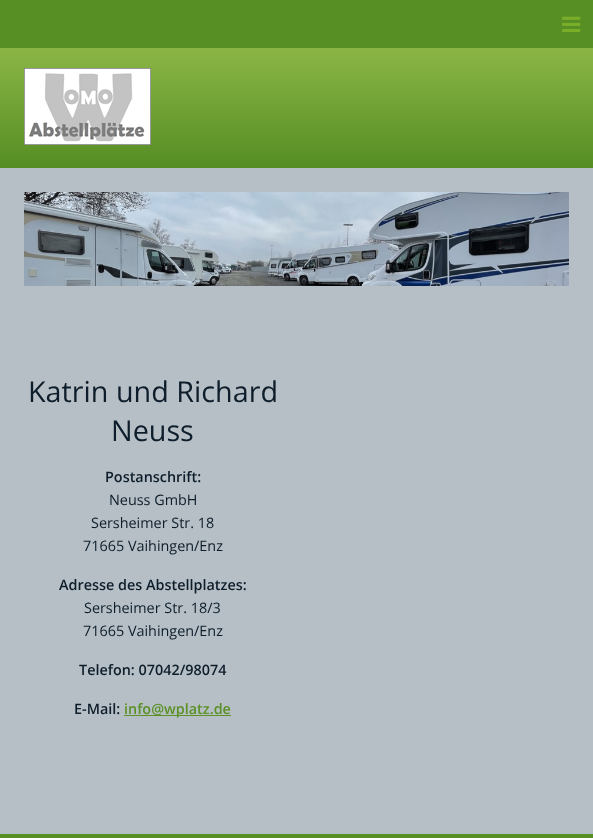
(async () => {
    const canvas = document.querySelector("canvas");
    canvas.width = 593;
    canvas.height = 838;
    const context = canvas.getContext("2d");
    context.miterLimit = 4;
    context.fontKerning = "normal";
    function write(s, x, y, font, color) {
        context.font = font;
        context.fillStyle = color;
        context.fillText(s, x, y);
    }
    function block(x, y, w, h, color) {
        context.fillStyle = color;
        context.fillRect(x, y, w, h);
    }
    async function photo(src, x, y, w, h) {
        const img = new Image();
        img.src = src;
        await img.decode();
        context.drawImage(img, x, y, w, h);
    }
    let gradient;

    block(0, 0, 593, 838, "rgb(182, 191, 197)");
    block(0, 0, 593, 48, "rgb(88, 143, 37)");
    await photo("media/1.png", 562, 16, 19, 16);
    gradient = context.createLinearGradient(297, 48, 297, 168);
    gradient.addColorStop(0, "rgb(139, 182, 70)");
    gradient.addColorStop(1, "rgb(85, 141, 35)");
    context.fillStyle = gradient;
    context.fillRect(0, 48, 593, 120);
    await photo("media/2.png", 24, 68, 127, 77);
    await photo("media/3.png", 24, 192, 545, 94);
    write("Katrin und Richard", 28, 402, "28.75px Open Sans", "rgb(13, 29, 43)");
    write("Neuss", 111, 441, "28.75px Open Sans", "rgb(13, 29, 43)");
    write("Postanschrift:", 105, 482, "600 14.4px Open Sans", "rgb(13, 29, 43)");
    write("Neuss GmbH", 109, 505, "14.4px Open Sans", "rgb(13, 29, 43)");
    write("Sersheimer Str. 18", 91, 528, "14.4px Open Sans", "rgb(13, 29, 43)");
    write("71665 Vaihingen/Enz", 83, 551, "14.4px Open Sans", "rgb(13, 29, 43)");
    write("Adresse des Abstellplatzes:", 59, 590, "600 14.4px Open Sans", "rgb(13, 29, 43)");
    write("Sersheimer Str. 18/3", 84, 613, "14.4px Open Sans", "rgb(13, 29, 43)");
    write("71665 Vaihingen/Enz", 83, 636, "14.4px Open Sans", "rgb(13, 29, 43)");
    write("Telefon: 07042/98074", 79, 675, "600 14.4px Open Sans", "rgb(13, 29, 43)");
    write("E-Mail:", 74, 714, "600 14.4px Open Sans", "rgb(13, 29, 43)");
    block(124, 715, 107, 1, "rgb(91, 145, 38)");
    write("info@wplatz.de", 124, 714, "600 14.4px Open Sans", "rgb(91, 145, 38)");
    block(0, 834, 593, 4, "rgb(88, 143, 37)");
})();
